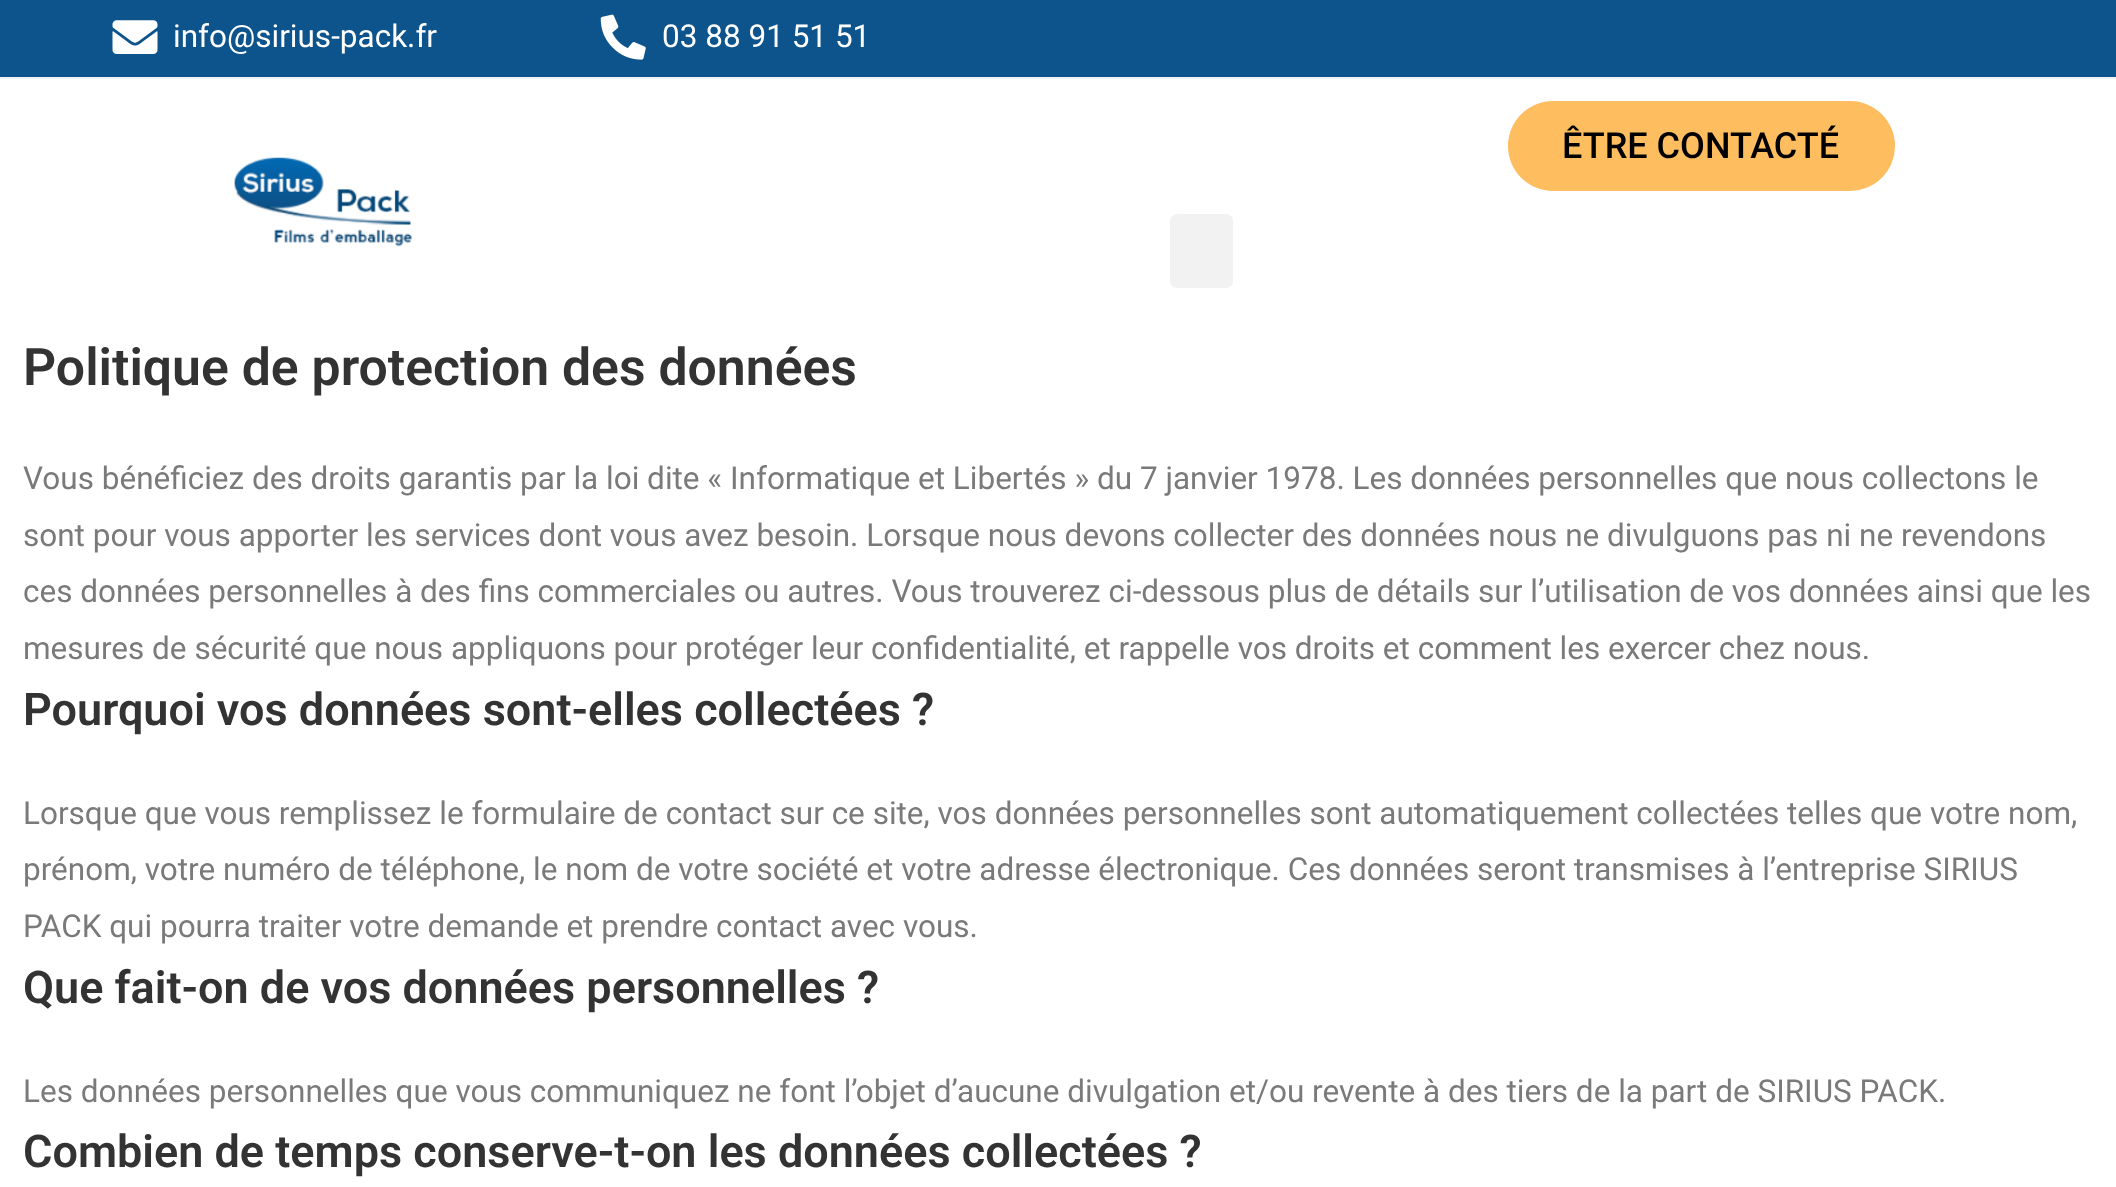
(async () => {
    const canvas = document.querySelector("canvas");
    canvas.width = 2116;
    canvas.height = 1187;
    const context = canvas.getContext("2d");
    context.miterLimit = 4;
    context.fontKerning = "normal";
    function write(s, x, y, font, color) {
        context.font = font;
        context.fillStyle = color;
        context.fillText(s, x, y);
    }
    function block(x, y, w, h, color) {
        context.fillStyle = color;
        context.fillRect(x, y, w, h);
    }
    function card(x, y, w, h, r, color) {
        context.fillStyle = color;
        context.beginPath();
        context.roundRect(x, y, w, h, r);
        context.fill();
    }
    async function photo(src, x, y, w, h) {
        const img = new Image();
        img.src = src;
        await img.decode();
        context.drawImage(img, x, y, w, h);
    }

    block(0, 0, 2116, 1187, "rgb(255, 255, 255)");
    block(0, 0, 2116, 77, "rgb(13, 83, 140)");
    block(0, 77, 2116, 2, "rgb(241, 241, 241)");
    await photo("media/1.png", 112, 20, 46, 34);
    write("info@sirius-pack.fr", 173, 47, "31.5px Roboto", "rgb(255, 255, 255)");
    await photo("media/2.png", 600, 14, 46, 46);
    write("03 88 91 51 51", 662, 47, "31.5px Roboto", "rgb(255, 255, 255)");
    card(1508, 101, 387, 90, 45, "rgb(254, 189, 94)");
    write("ÊTRE CONTACTÉ", 1562, 158, "500 36px Roboto", "rgb(0, 0, 0)");
    card(1170, 214, 63, 74, 7, "rgb(242, 242, 242)");
    await photo("media/3.png", 234, 157, 178, 90);
    write("Politique de protection des données", 23, 385, "600 51.75px Roboto", "rgb(51, 51, 51)");
    write("Vous bénéficiez des droits garantis par la loi dite « Informatique et Libertés » du 7 janvier 1978. Les données personnelles que nous collectons le", 23, 489, "31.5px Roboto", "rgb(122, 122, 122)");
    write("sont pour vous apporter les services dont vous avez besoin. Lorsque nous devons collecter des données nous ne divulguons pas ni ne revendons", 23, 546, "31.5px Roboto", "rgb(122, 122, 122)");
    write("ces données personnelles à des fins commerciales ou autres. Vous trouverez ci-dessous plus de détails sur l’utilisation de vos données ainsi que les", 23, 602, "31.5px Roboto", "rgb(122, 122, 122)");
    write("mesures de sécurité que nous appliquons pour protéger leur confidentialité, et rappelle vos droits et comment les exercer chez nous.", 23, 659, "31.5px Roboto", "rgb(122, 122, 122)");
    write("Pourquoi vos données sont-elles collectées ?", 23, 725, "600 45px Roboto", "rgb(51, 51, 51)");
    write("Lorsque que vous remplissez le formulaire de contact sur ce site, vos données personnelles sont automatiquement collectées telles que votre nom,", 23, 824, "31.5px Roboto", "rgb(122, 122, 122)");
    write("prénom, votre numéro de téléphone, le nom de votre société et votre adresse électronique. Ces données seront transmises à l’entreprise SIRIUS", 23, 880, "31.5px Roboto", "rgb(122, 122, 122)");
    write("PACK qui pourra traiter votre demande et prendre contact avec vous.", 23, 937, "31.5px Roboto", "rgb(122, 122, 122)");
    write("Que fait-on de vos données personnelles ?", 23, 1003, "600 45px Roboto", "rgb(51, 51, 51)");
    write("Les données personnelles que vous communiquez ne font l’objet d’aucune divulgation et/ou revente à des tiers de la part de SIRIUS PACK.", 23, 1102, "31.5px Roboto", "rgb(122, 122, 122)");
    write("Combien de temps conserve-t-on les données collectées ?", 23, 1167, "600 45px Roboto", "rgb(51, 51, 51)");
})();
